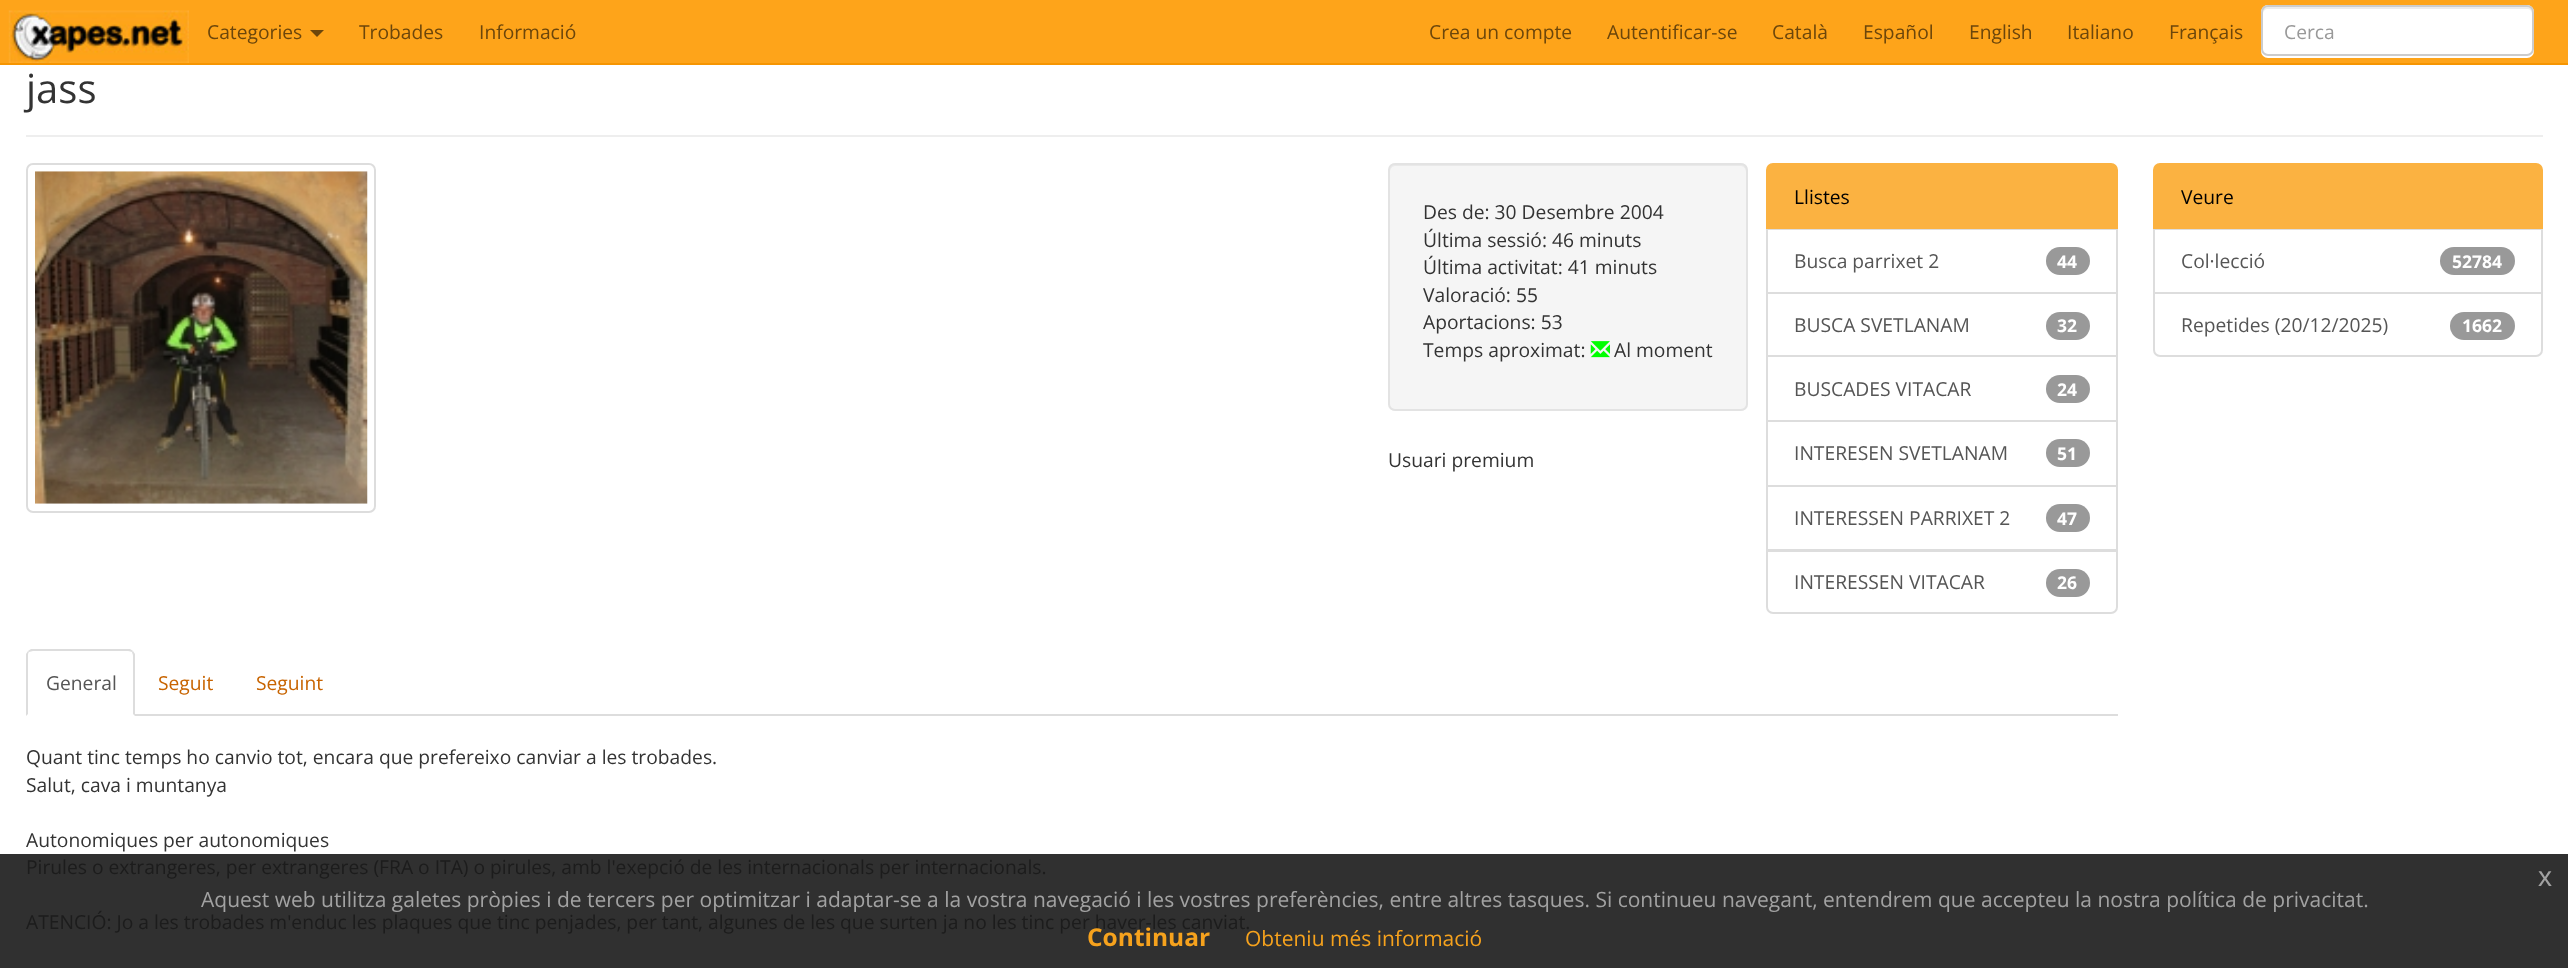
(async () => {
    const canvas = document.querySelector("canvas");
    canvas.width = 2568;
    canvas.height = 968;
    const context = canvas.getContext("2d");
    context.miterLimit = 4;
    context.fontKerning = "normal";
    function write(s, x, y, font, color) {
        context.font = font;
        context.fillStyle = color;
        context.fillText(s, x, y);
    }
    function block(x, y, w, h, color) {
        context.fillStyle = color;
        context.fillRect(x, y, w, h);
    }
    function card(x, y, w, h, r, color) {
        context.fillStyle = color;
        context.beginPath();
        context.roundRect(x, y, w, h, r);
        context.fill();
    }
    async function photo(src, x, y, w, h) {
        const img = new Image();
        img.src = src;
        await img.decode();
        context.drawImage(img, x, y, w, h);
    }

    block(0, 0, 2568, 968, "rgb(255, 255, 255)");
    block(0, 854, 2568, 114, "rgb(48, 48, 48)");
    block(0, 0, 2568, 63, "rgb(254, 164, 26)");
    block(0, 63, 2568, 2, "rgb(246, 149, 1)");
    await photo("media/1.png", 8, 10, 181, 53);
    write("Categories", 207, 39, "19.25px Open Sans", "rgb(108, 70, 11)");
    context.beginPath();
    context.moveTo(310, 30);
    context.lineTo(324, 30);
    context.lineTo(317, 37);
    context.closePath();
    context.fill();
    write("Trobades", 359, 39, "19.25px Open Sans", "rgb(108, 70, 11)");
    write("Informació", 479, 39, "19.25px Open Sans", "rgb(108, 70, 11)");
    write("Crea un compte", 1429, 39, "19.25px Open Sans", "rgb(108, 70, 11)");
    write("Autentificar-se", 1607, 39, "19.25px Open Sans", "rgb(108, 70, 11)");
    write("Català", 1772, 39, "19.25px Open Sans", "rgb(108, 70, 11)");
    write("Español", 1863, 39, "19.25px Open Sans", "rgb(108, 70, 11)");
    write("English", 1969, 39, "19.25px Open Sans", "rgb(108, 70, 11)");
    write("Italiano", 2067, 39, "19.25px Open Sans", "rgb(108, 70, 11)");
    write("Français", 2169, 39, "19.25px Open Sans", "rgb(108, 70, 11)");
    card(2261, 5, 273, 53, 7, "rgb(255, 255, 255)");
    context.fillStyle = "rgb(236, 236, 236)";
    context.beginPath();
    context.moveTo(2268, 9);
    context.lineTo(2527, 9);
    context.bezierCurveTo(2530, 9, 2532, 11, 2532, 14);
    context.lineTo(2532, 12);
    context.bezierCurveTo(2532, 9, 2530, 7, 2527, 7);
    context.lineTo(2268, 7);
    context.bezierCurveTo(2265, 7, 2263, 9, 2263, 12);
    context.lineTo(2263, 14);
    context.bezierCurveTo(2263, 11, 2265, 9, 2268, 9);
    context.closePath();
    context.fill();
    context.beginPath();
    context.roundRect(2262, 6, 271, 49, 6);
    context.strokeStyle = "rgb(204, 204, 204)";
    context.lineWidth = 2;
    context.stroke();
    write("Cerca", 2284, 39, "19.25px Open Sans", "rgb(153, 153, 153)");
    block(26, 135, 2517, 2, "rgb(238, 238, 238)");
    write("jass", 26, 103, "40px Open Sans", "rgb(51, 51, 51)");
    context.beginPath();
    context.roundRect(27, 164, 348, 348, 6);
    context.strokeStyle = "rgb(221, 221, 221)";
    context.stroke();
    await photo("media/2.png", 35, 171, 333, 333);
    card(1388, 163, 360, 248, 7, "rgb(245, 245, 245)");
    context.fillStyle = "rgb(233, 233, 233)";
    context.beginPath();
    context.moveTo(1395, 166);
    context.lineTo(1741, 166);
    context.bezierCurveTo(1744, 166, 1746, 169, 1746, 172);
    context.lineTo(1746, 406);
    context.lineTo(1745, 409);
    context.bezierCurveTo(1746, 408, 1747, 406, 1747, 405);
    context.lineTo(1747, 170);
    context.bezierCurveTo(1747, 167, 1745, 165, 1742, 165);
    context.lineTo(1395, 165);
    context.bezierCurveTo(1392, 165, 1390, 167, 1390, 170);
    context.lineTo(1390, 172);
    context.bezierCurveTo(1390, 169, 1392, 166, 1395, 166);
    context.closePath();
    context.fill();
    context.beginPath();
    context.roundRect(1389, 164, 358, 246, 6);
    context.strokeStyle = "rgb(227, 227, 227)";
    context.stroke();
    write("Des de: 30 Desembre 2004", 1423, 219, "19.25px Open Sans", "rgb(51, 51, 51)");
    write("Última sessió: 46 minuts", 1423, 247, "19.25px Open Sans", "rgb(51, 51, 51)");
    write("Última activitat: 41 minuts", 1423, 274, "19.25px Open Sans", "rgb(51, 51, 51)");
    write("Valoració: 55", 1423, 302, "19.25px Open Sans", "rgb(51, 51, 51)");
    write("Aportacions: 53", 1423, 329, "19.25px Open Sans", "rgb(51, 51, 51)");
    write("Temps aproximat:", 1423, 357, "19.25px Open Sans", "rgb(51, 51, 51)");
    await photo("media/3.png", 1590, 341, 20, 17);
    write("Al moment", 1614, 357, "19.25px Open Sans", "rgb(51, 51, 51)");
    write("Usuari premium", 1388, 467, "19.25px Open Sans", "rgb(51, 51, 51)");
    context.strokeStyle = "rgb(221, 221, 221)";
    context.strokeRect(1767, 229, 350, 64);
    context.fillStyle = "rgb(251, 178, 65)";
    context.beginPath();
    context.roundRect(1767, 164, 350, 64, [6, 6, 0, 0]);
    context.fill();
    context.strokeStyle = "rgb(251, 178, 65)";
    context.stroke();
    write("Llistes", 1794, 204, "19.25px Open Sans", "rgb(0, 0, 0)");
    write("Busca parrixet 2", 1794, 268, "19.25px Open Sans", "rgb(85, 85, 85)");
    card(2046, 247, 44, 28, 14, "rgb(153, 153, 153)");
    write("44", 2057, 268, "bold 17.5px Open Sans", "rgb(255, 255, 255)");
    context.strokeStyle = "rgb(221, 221, 221)";
    context.strokeRect(1767, 293, 350, 63);
    write("BUSCA SVETLANAM", 1794, 332, "19.25px Open Sans", "rgb(85, 85, 85)");
    card(2046, 312, 44, 28, 14, "rgb(153, 153, 153)");
    write("32", 2057, 332, "bold 17.5px Open Sans", "rgb(255, 255, 255)");
    context.strokeRect(1767, 356, 350, 65);
    write("BUSCADES VITACAR", 1794, 396, "19.25px Open Sans", "rgb(85, 85, 85)");
    card(2046, 375, 44, 28, 14, "rgb(153, 153, 153)");
    write("24", 2057, 396, "bold 17.5px Open Sans", "rgb(255, 255, 255)");
    context.strokeRect(1767, 421, 350, 65);
    write("INTERESEN SVETLANAM", 1794, 460, "19.25px Open Sans", "rgb(85, 85, 85)");
    card(2046, 439, 44, 28, 14, "rgb(153, 153, 153)");
    write("51", 2057, 460, "bold 17.5px Open Sans", "rgb(255, 255, 255)");
    context.strokeRect(1767, 486, 350, 64);
    write("INTERESSEN PARRIXET 2", 1794, 525, "19.25px Open Sans", "rgb(85, 85, 85)");
    card(2046, 504, 44, 28, 14, "rgb(153, 153, 153)");
    write("47", 2057, 525, "bold 17.5px Open Sans", "rgb(255, 255, 255)");
    context.beginPath();
    context.roundRect(1767, 551, 350, 62, [0, 0, 6, 6]);
    context.fill();
    context.stroke();
    write("INTERESSEN VITACAR", 1794, 589, "19.25px Open Sans", "rgb(85, 85, 85)");
    card(2046, 569, 44, 28, 14, "rgb(153, 153, 153)");
    write("26", 2057, 589, "bold 17.5px Open Sans", "rgb(255, 255, 255)");
    block(135, 714, 1983, 2, "rgb(221, 221, 221)");
    context.beginPath();
    context.moveTo(33, 651);
    context.bezierCurveTo(32, 651, 30, 652, 29, 652);
    context.lineTo(28, 651);
    context.lineTo(31, 649);
    context.lineTo(130, 649);
    context.lineTo(133, 651);
    context.lineTo(132, 652);
    context.bezierCurveTo(131, 652, 130, 651, 128, 651);
    context.closePath();
    context.fill();
    context.beginPath();
    context.moveTo(133, 651);
    context.lineTo(135, 654);
    context.lineTo(135, 716);
    context.lineTo(133, 714);
    context.lineTo(133, 656);
    context.bezierCurveTo(133, 654, 132, 653, 132, 652);
    context.closePath();
    context.fill();
    context.beginPath();
    context.moveTo(26, 716);
    context.lineTo(26, 654);
    context.lineTo(28, 651);
    context.lineTo(29, 652);
    context.bezierCurveTo(28, 653, 28, 654, 28, 656);
    context.lineTo(28, 714);
    context.closePath();
    context.fill();
    write("General", 46, 690, "19.25px Open Sans", "rgb(85, 85, 85)");
    write("Seguit", 158, 690, "19.25px Open Sans", "rgb(200, 100, 1)");
    write("Seguint", 256, 690, "19.25px Open Sans", "rgb(200, 100, 1)");
    write("Quant tinc temps ho canvio tot, encara que prefereixo canviar a les trobades.", 26, 764, "19.25px Open Sans", "rgb(51, 51, 51)");
    write("Salut, cava i muntanya", 26, 792, "19.25px Open Sans", "rgb(51, 51, 51)");
    write("Autonomiques per autonomiques", 26, 847, "19.25px Open Sans", "rgb(51, 51, 51)");
    write("Pirules o extrangeres, per extrangeres (FRA o ITA) o pirules, amb l'exepció de les internacionals per internacionals.", 26, 874, "19.25px Open Sans", "rgb(28, 28, 28)");
    write("ATENCIÓ: Jo a les trobades m'enduc les plaques que tinc penjades, per tant, algunes de les que surten ja no les tinc per haver-les canviat.", 26, 929, "19.25px Open Sans", "rgb(28, 28, 28)");
    context.strokeRect(2154, 229, 388, 64);
    context.fillStyle = "rgb(251, 178, 65)";
    context.beginPath();
    context.roundRect(2154, 164, 388, 64, [6, 6, 0, 0]);
    context.fill();
    context.strokeStyle = "rgb(251, 178, 65)";
    context.stroke();
    write("Veure", 2181, 204, "19.25px Open Sans", "rgb(0, 0, 0)");
    write("Col·lecció", 2181, 268, "19.25px Open Sans", "rgb(85, 85, 85)");
    card(2440, 247, 75, 28, 14, "rgb(153, 153, 153)");
    write("52784", 2452, 268, "bold 17.5px Open Sans", "rgb(255, 255, 255)");
    context.beginPath();
    context.roundRect(2154, 293, 388, 63, [0, 0, 6, 6]);
    context.fill();
    context.strokeStyle = "rgb(221, 221, 221)";
    context.stroke();
    write("Repetides (20/12/2025)", 2181, 332, "19.25px Open Sans", "rgb(85, 85, 85)");
    card(2450, 312, 65, 28, 14, "rgb(153, 153, 153)");
    write("1662", 2462, 332, "bold 17.5px Open Sans", "rgb(255, 255, 255)");
    write("x", 2538, 886, "28px Liberation Sans", "rgb(162, 162, 162)");
    write("Aquest web utilitza galetes pròpies i de tercers per optimitzar i adaptar-se a la vostra navegació i les vostres preferències, entre altres tasques. Si continueu navegant, entendrem que accepteu la nostra política de privacitat.", 201, 907, "21px Open Sans", "rgb(162, 162, 162)");
    write("Continuar", 1087, 946, "bold 24.5px Open Sans", "rgb(246, 162, 29)");
    write("Obteniu més informació", 1245, 946, "21px Open Sans", "rgb(246, 162, 29)");
})();
